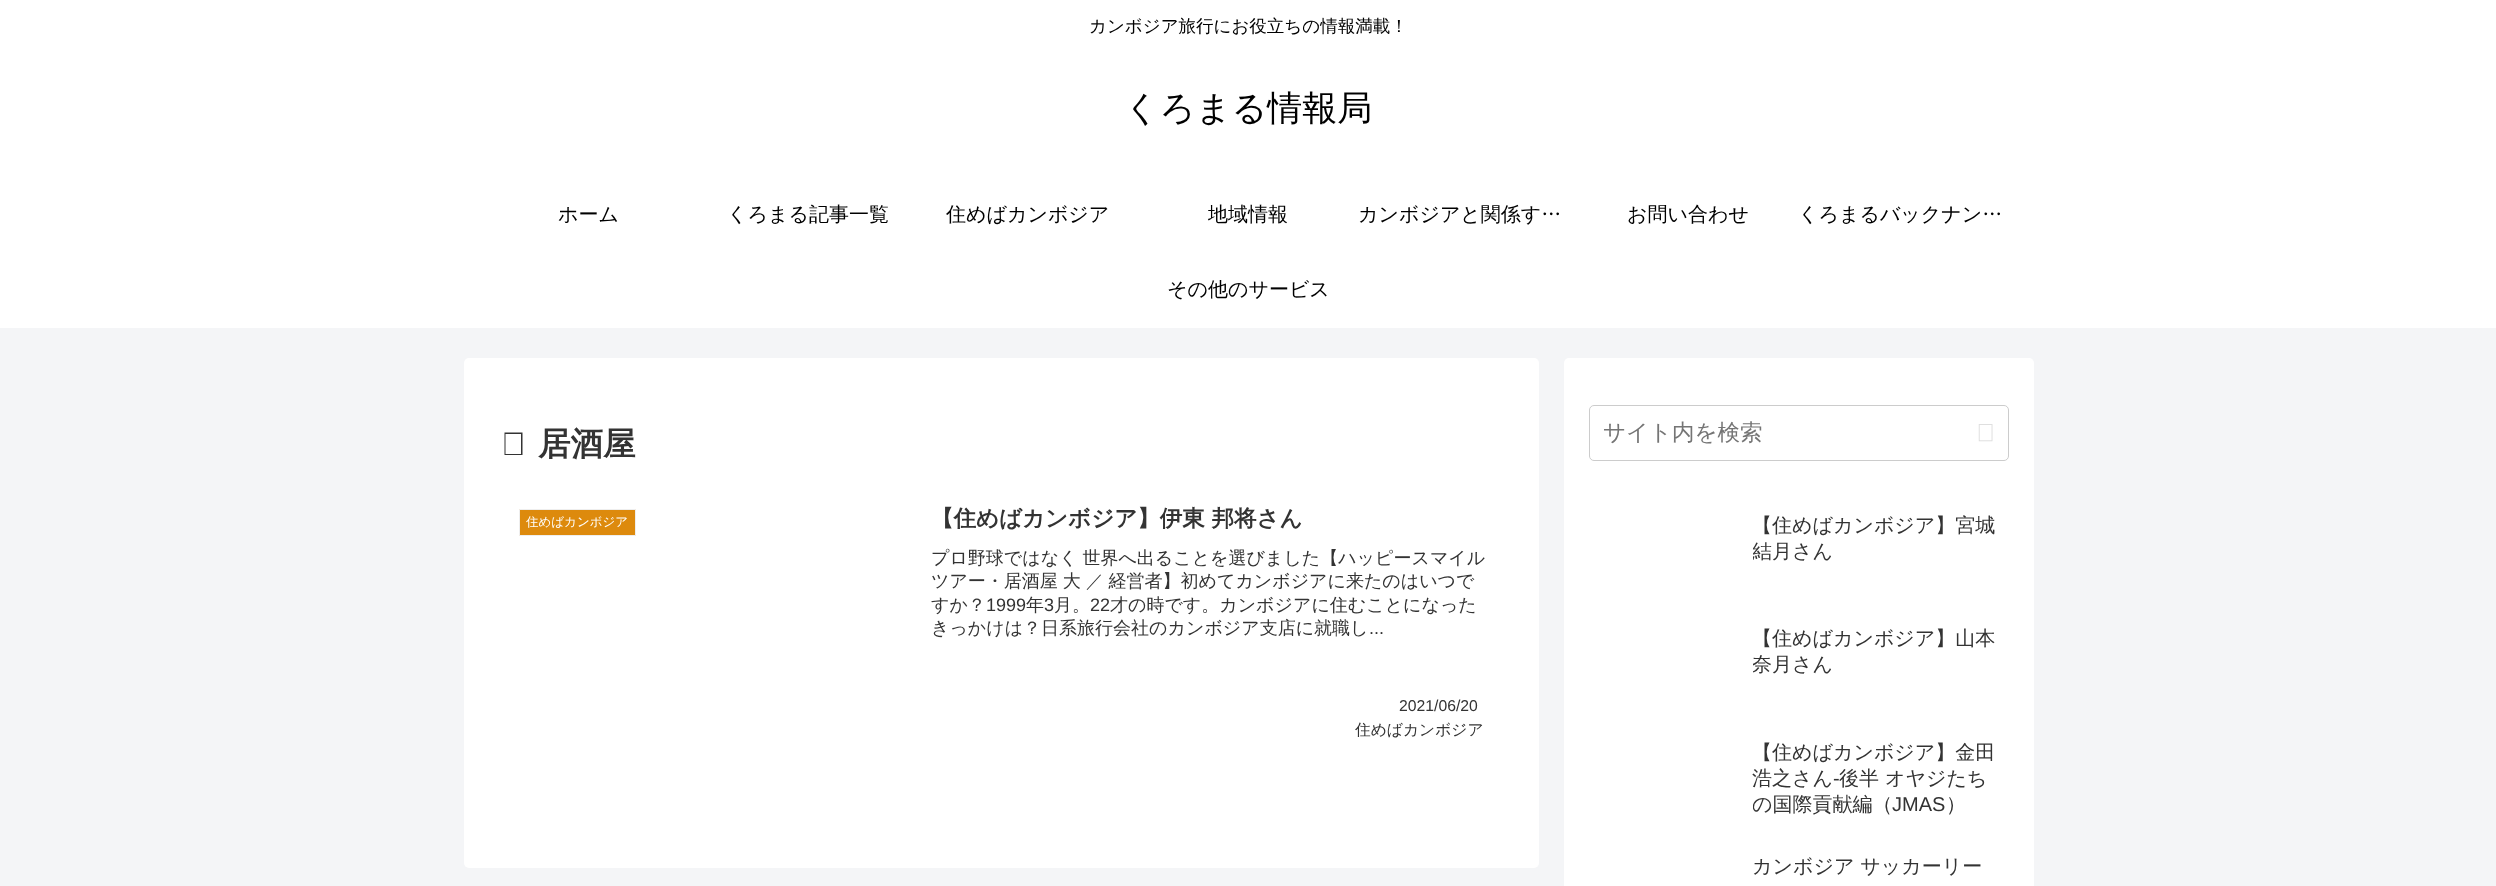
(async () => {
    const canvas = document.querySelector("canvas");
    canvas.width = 2496;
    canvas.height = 886;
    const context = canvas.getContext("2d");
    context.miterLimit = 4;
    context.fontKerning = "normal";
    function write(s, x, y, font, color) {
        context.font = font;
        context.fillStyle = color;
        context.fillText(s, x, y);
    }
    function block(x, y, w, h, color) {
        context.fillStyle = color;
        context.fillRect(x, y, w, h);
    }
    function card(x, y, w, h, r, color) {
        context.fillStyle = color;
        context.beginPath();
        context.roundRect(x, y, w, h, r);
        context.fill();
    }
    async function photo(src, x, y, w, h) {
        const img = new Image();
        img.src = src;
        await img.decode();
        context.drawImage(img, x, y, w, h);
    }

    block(0, 0, 2496, 886, "rgb(244, 245, 247)");
    block(0, 0, 2496, 328, "rgb(255, 255, 255)");
    write("カンボジア旅行にお役立ちの情報満載！", 1089, 32, "500 17.5px WenQuanYi Zen Hei", "rgb(0, 0, 0)");
    write("くろまる情報局", 1124, 120, "500 35px WenQuanYi Zen Hei", "rgb(0, 0, 0)");
    write("ホーム", 558, 221, "500 20px WenQuanYi Zen Hei", "rgb(0, 0, 0)");
    write("くろまる記事一覧", 727, 221, "500 20px WenQuanYi Zen Hei", "rgb(0, 0, 0)");
    write("住めばカンボジア", 946, 221, "500 20px WenQuanYi Zen Hei", "rgb(0, 0, 0)");
    write("地域情報", 1208, 221, "500 20px WenQuanYi Zen Hei", "rgb(0, 0, 0)");
    write("カンボジアと関係す…", 1358, 221, "500 20px WenQuanYi Zen Hei", "rgb(0, 0, 0)");
    write("お問い合わせ", 1627, 221, "500 20px WenQuanYi Zen Hei", "rgb(0, 0, 0)");
    write("くろまるバックナン…", 1798, 221, "500 20px WenQuanYi Zen Hei", "rgb(0, 0, 0)");
    write("その他のサービス", 1167, 296, "500 20px WenQuanYi Zen Hei", "rgb(0, 0, 0)");
    card(464, 358, 1075, 510, 5, "rgb(255, 255, 255)");
    context.fillStyle = "rgb(51, 51, 51)";
    context.beginPath();
    context.moveTo(504.5, 432.5);
    context.lineTo(522.5, 432.5);
    context.lineTo(522.5, 455);
    context.lineTo(504.5, 455);
    context.closePath();
    context.moveTo(505.5, 434);
    context.lineTo(505.5, 454);
    context.lineTo(521, 454);
    context.lineTo(521, 434);
    context.closePath();
    context.fill();
    write("居酒屋", 538, 455, "bold 32.5px WenQuanYi Zen Hei", "rgb(51, 51, 51)");
    context.fillStyle = "rgb(221, 138, 13)";
    context.beginPath();
    context.rect(519.5, 509.5, 116, 26);
    context.fill();
    context.strokeStyle = "rgb(238, 238, 238)";
    context.stroke();
    write("住めばカンボジア", 526, 526, "500 12.5px WenQuanYi Zen Hei", "rgb(255, 255, 255)");
    write("【住めばカンボジア】伊東 邦将さん", 931, 526, "bold 22.5px WenQuanYi Zen Hei", "rgb(51, 51, 51)");
    context.wordSpacing = "-0.5px";
    write("プロ野球ではなく 世界へ出ることを選びました【ハッピースマイル", 931, 564, "500 18px WenQuanYi Zen Hei", "rgb(51, 51, 51)");
    write("ツアー・居酒屋 大 ／ 経営者】初めてカンボジアに来たのはいつで", 931, 587, "500 18px WenQuanYi Zen Hei", "rgb(51, 51, 51)");
    context.wordSpacing = "0px";
    write("すか？", 931, 611, "500 18px WenQuanYi Zen Hei", "rgb(51, 51, 51)");
    write("1999", 986, 611, "18px Liberation Sans", "rgb(51, 51, 51)");
    write("年", 1026, 611, "500 18px WenQuanYi Zen Hei", "rgb(51, 51, 51)");
    write("3", 1044, 611, "18px Liberation Sans", "rgb(51, 51, 51)");
    write("月。", 1054, 611, "500 18px WenQuanYi Zen Hei", "rgb(51, 51, 51)");
    write("22", 1090, 611, "18px Liberation Sans", "rgb(51, 51, 51)");
    write("才の時です。カンボジアに住むことになった", 1110, 611, "500 18px WenQuanYi Zen Hei", "rgb(51, 51, 51)");
    write("きっかけは？日系旅行会社のカンボジア支店に就職し", 931, 634, "500 18px WenQuanYi Zen Hei", "rgb(51, 51, 51)");
    write("...", 1369, 634, "18px Liberation Sans", "rgb(51, 51, 51)");
    write("2021/06/20", 1399, 711, "15.75px Liberation Sans", "rgb(51, 51, 51)");
    write("住めばカンボジア", 1355, 735, "500 15.75px WenQuanYi Zen Hei", "rgb(51, 51, 51)");
    card(1564, 358, 470, 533, 5, "rgb(255, 255, 255)");
    context.beginPath();
    context.roundRect(1589.5, 405.5, 419, 55, 4.5);
    context.strokeStyle = "rgb(204, 204, 204)";
    context.stroke();
    write("サイト内を検索", 1603, 440, "500 22.5px WenQuanYi Zen Hei", "rgb(117, 117, 117)");
    await photo("media/1.png", 1978, 424, 15, 18);
    write("【住めばカンボジア】宮城", 1752, 532, "500 20px WenQuanYi Zen Hei", "rgb(51, 51, 51)");
    context.save();
    context.beginPath();
    context.rect(1753, 513, 250, 52);
    context.clip();
    write("結月さん", 1752, 558, "500 20px WenQuanYi Zen Hei", "rgb(51, 51, 51)");
    context.restore();
    write("【住めばカンボジア】山本", 1752, 645, "500 20px WenQuanYi Zen Hei", "rgb(51, 51, 51)");
    context.save();
    context.beginPath();
    context.rect(1753, 626, 250, 53);
    context.clip();
    write("奈月さん", 1752, 671, "500 20px WenQuanYi Zen Hei", "rgb(51, 51, 51)");
    context.restore();
    write("【住めばカンボジア】金田", 1752, 759, "500 20px WenQuanYi Zen Hei", "rgb(51, 51, 51)");
    write("浩之さん", 1752, 785, "500 20px WenQuanYi Zen Hei", "rgb(51, 51, 51)");
    write("-", 1833, 785, "20px Liberation Sans", "rgb(51, 51, 51)");
    write("後半 オヤジたち", 1839, 785, "500 20px WenQuanYi Zen Hei", "rgb(51, 51, 51)");
    context.save();
    context.beginPath();
    context.rect(1753, 740, 250, 79);
    context.clip();
    write("の国際貢献編（", 1752, 811, "500 20px WenQuanYi Zen Hei", "rgb(51, 51, 51)");
    context.restore();
    write("JMAS", 1892, 811, "20px Liberation Sans", "rgb(51, 51, 51)");
    write("）", 1946, 811, "500 20px WenQuanYi Zen Hei", "rgb(51, 51, 51)");
    write("カンボジア サッカーリー", 1752, 873, "500 20px WenQuanYi Zen Hei", "rgb(51, 51, 51)");
})();
